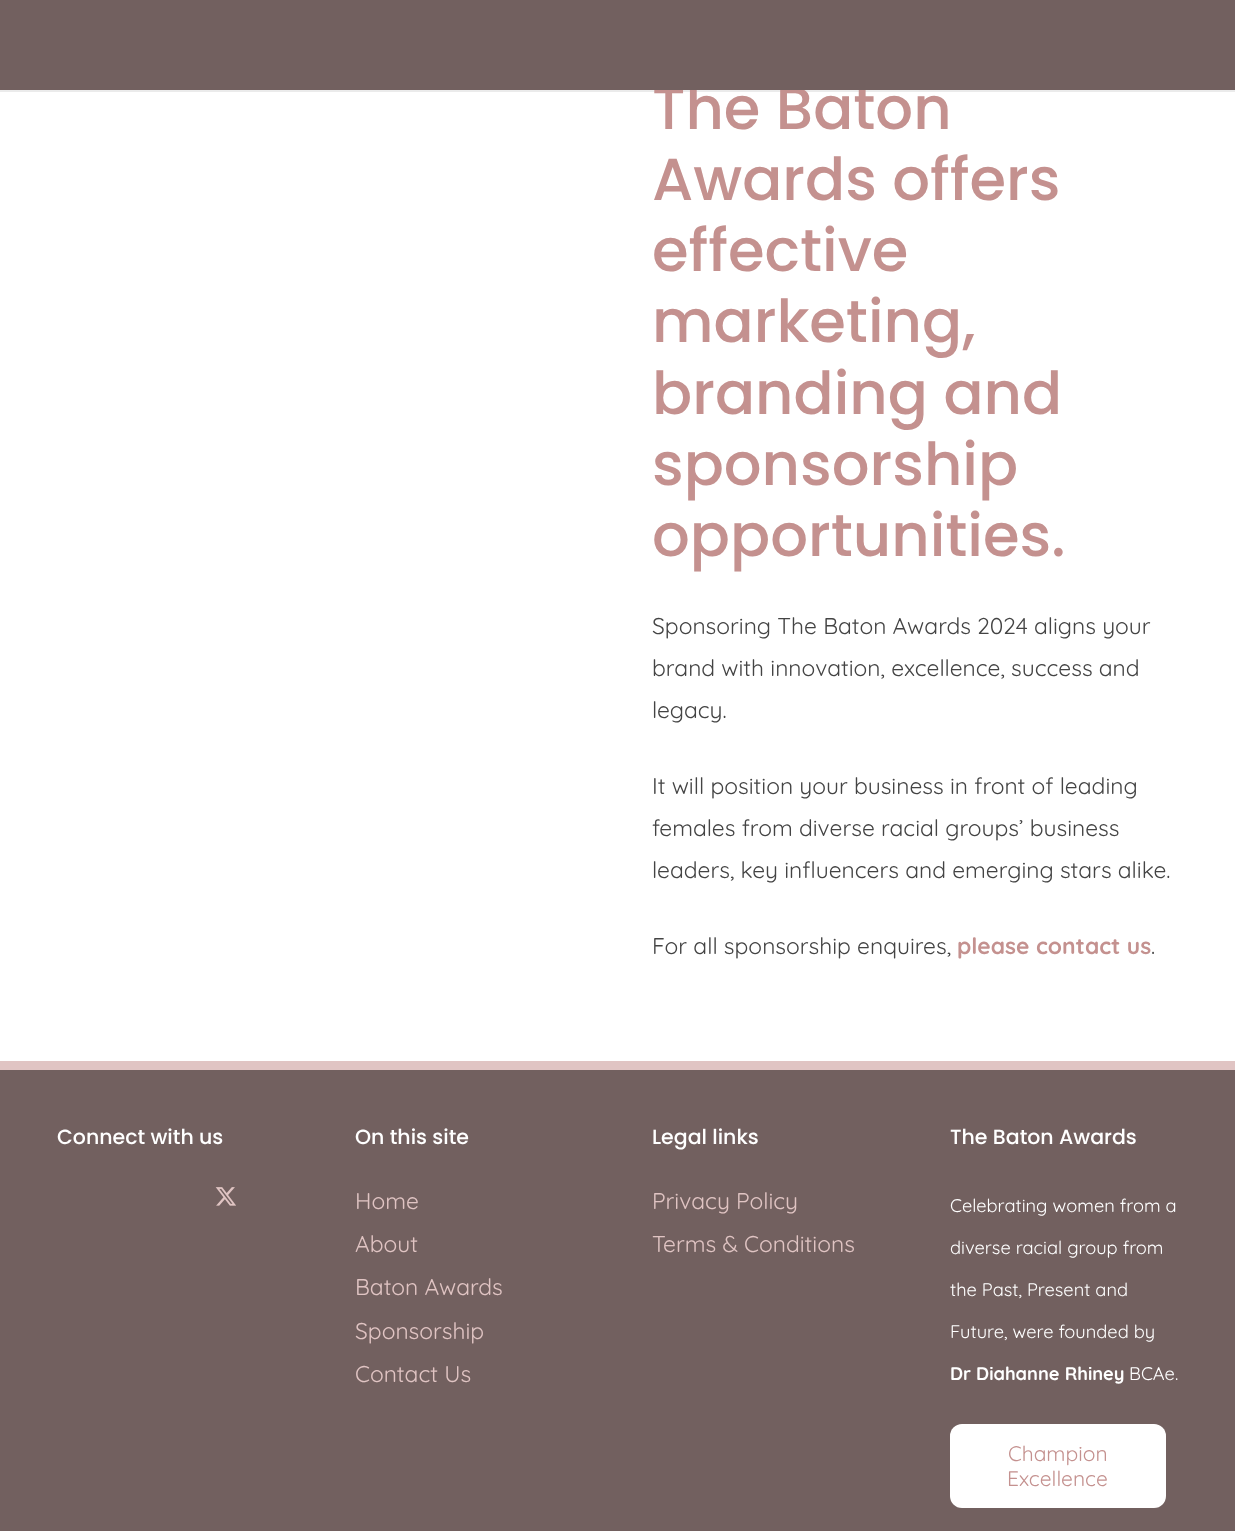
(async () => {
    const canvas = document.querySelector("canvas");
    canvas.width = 1235;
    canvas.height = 1531;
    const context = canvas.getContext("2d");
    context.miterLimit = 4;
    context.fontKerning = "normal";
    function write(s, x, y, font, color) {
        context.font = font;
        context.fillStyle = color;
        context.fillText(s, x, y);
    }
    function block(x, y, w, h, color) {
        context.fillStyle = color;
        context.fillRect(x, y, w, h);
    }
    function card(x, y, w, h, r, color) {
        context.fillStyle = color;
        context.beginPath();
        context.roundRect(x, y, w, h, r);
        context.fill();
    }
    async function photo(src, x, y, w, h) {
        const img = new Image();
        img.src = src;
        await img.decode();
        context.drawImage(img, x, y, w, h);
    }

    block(0, 0, 1235, 1531, "rgb(255, 255, 255)");
    block(0, 90, 1235, 2, "rgba(0, 0, 0, 0.08)");
    write("The Baton", 652, 129, "500 59.25px Poppins", "rgb(196, 145, 143)");
    block(0, 0, 1235, 90, "rgb(114, 96, 95)");
    write("Awards offers", 652, 200, "500 59.25px Poppins", "rgb(196, 145, 143)");
    write("effective", 652, 271, "500 59.25px Poppins", "rgb(196, 145, 143)");
    write("marketing,", 652, 342, "500 59.25px Poppins", "rgb(196, 145, 143)");
    write("branding and", 652, 414, "500 59.25px Poppins", "rgb(196, 145, 143)");
    write("sponsorship", 652, 485, "500 59.25px Poppins", "rgb(196, 145, 143)");
    write("opportunities.", 652, 556, "500 59.25px Poppins", "rgb(196, 145, 143)");
    write("Sponsoring The Baton Awards 2024 aligns your", 652, 634, "22.8px Quicksand", "rgb(68, 68, 68)");
    write("brand with innovation, excellence, success and", 652, 676, "22.8px Quicksand", "rgb(68, 68, 68)");
    write("legacy.", 652, 718, "22.8px Quicksand", "rgb(68, 68, 68)");
    write("It will position your business in front of leading", 652, 794, "22.8px Quicksand", "rgb(68, 68, 68)");
    write("females from diverse racial groups’ business", 652, 836, "22.8px Quicksand", "rgb(68, 68, 68)");
    write("leaders, key influencers and emerging stars alike.", 652, 878, "22.8px Quicksand", "rgb(68, 68, 68)");
    write("For all sponsorship enquires,", 652, 954, "22.8px Quicksand", "rgb(68, 68, 68)");
    write("please contact us", 957, 954, "bold 22.8px Quicksand", "rgb(196, 145, 143)");
    write(".", 1151, 954, "22.8px Quicksand", "rgb(68, 68, 68)");
    block(0, 1070, 1235, 461, "rgb(114, 96, 95)");
    block(0, 1061, 1235, 9, "rgb(224, 196, 195)");
    write("Connect with us", 57, 1144, "500 20.5px Poppins", "rgb(255, 255, 255)");
    await photo("media/1.png", 215, 1187, 21, 19);
    write("On this site", 355, 1144, "500 20.5px Poppins", "rgb(255, 255, 255)");
    write("Home", 355, 1209, "22.8px Quicksand", "rgb(224, 196, 195)");
    write("About", 355, 1252, "22.8px Quicksand", "rgb(224, 196, 195)");
    write("Baton Awards", 355, 1295, "22.8px Quicksand", "rgb(224, 196, 195)");
    write("Sponsorship", 355, 1339, "22.8px Quicksand", "rgb(224, 196, 195)");
    write("Contact Us", 355, 1382, "22.8px Quicksand", "rgb(224, 196, 195)");
    write("Legal links", 652, 1144, "500 20.5px Poppins", "rgb(255, 255, 255)");
    write("Privacy Policy", 652, 1209, "22.8px Quicksand", "rgb(224, 196, 195)");
    write("Terms & Conditions", 652, 1252, "22.8px Quicksand", "rgb(224, 196, 195)");
    write("The Baton Awards", 950, 1144, "500 20.5px Poppins", "rgb(255, 255, 255)");
    write("Celebrating women from a", 950, 1212, "18.25px Quicksand", "rgb(255, 255, 255)");
    write("diverse racial group from", 950, 1254, "18.25px Quicksand", "rgb(255, 255, 255)");
    write("the Past, Present and", 950, 1296, "18.25px Quicksand", "rgb(255, 255, 255)");
    write("Future, were founded by", 950, 1338, "18.25px Quicksand", "rgb(255, 255, 255)");
    write("Dr Diahanne Rhiney", 950, 1380, "bold 18.25px Quicksand", "rgb(255, 255, 255)");
    write("BCAe.", 1129, 1380, "18.25px Quicksand", "rgb(255, 255, 255)");
    card(950, 1424, 216, 84, 12, "rgb(255, 255, 255)");
    write("Champion", 1008, 1461, "21px Quicksand", "rgb(196, 145, 143)");
    write("Excellence", 1007, 1486, "21px Quicksand", "rgb(196, 145, 143)");
})();
